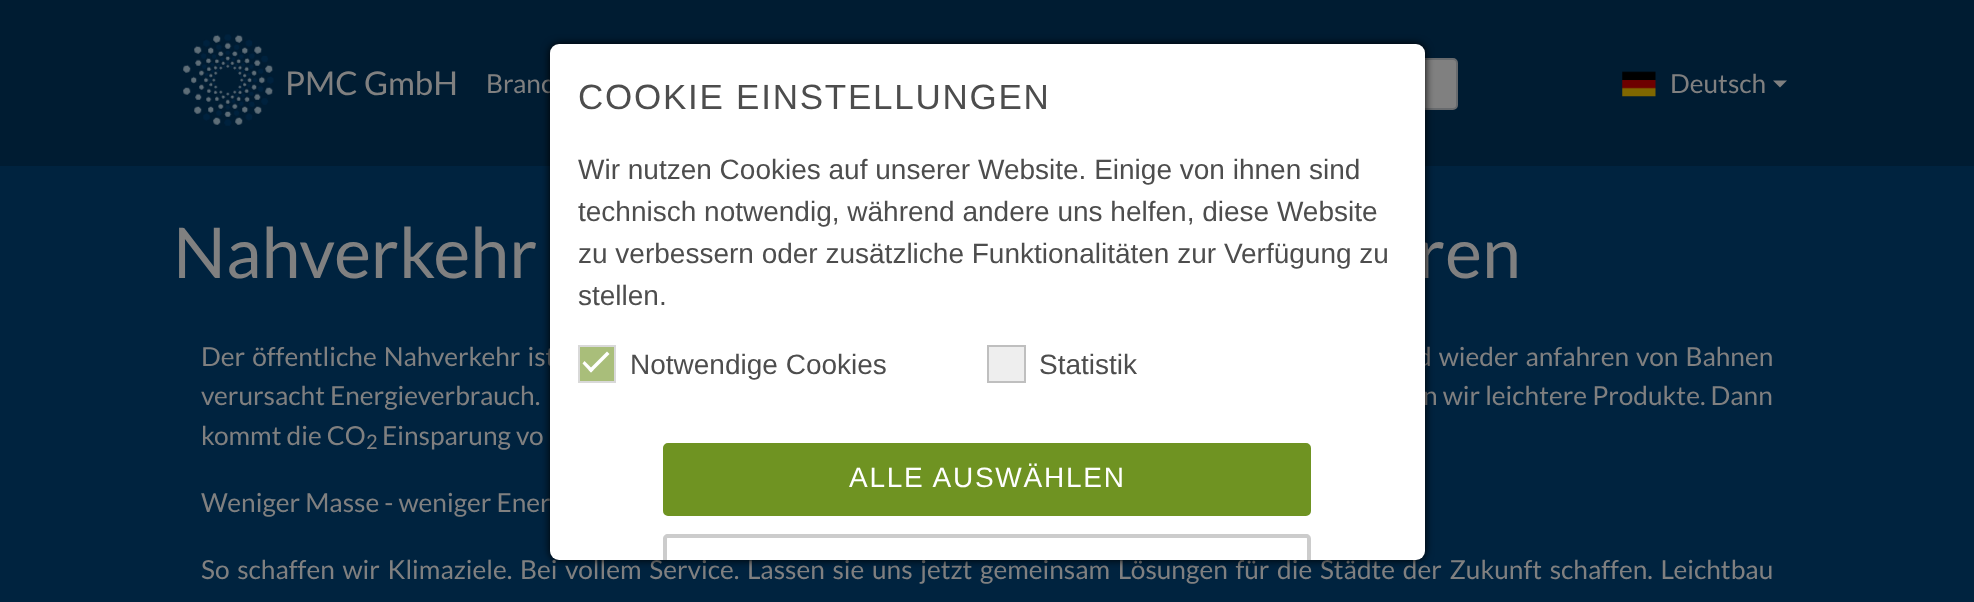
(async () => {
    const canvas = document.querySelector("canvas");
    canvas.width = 1974;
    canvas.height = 602;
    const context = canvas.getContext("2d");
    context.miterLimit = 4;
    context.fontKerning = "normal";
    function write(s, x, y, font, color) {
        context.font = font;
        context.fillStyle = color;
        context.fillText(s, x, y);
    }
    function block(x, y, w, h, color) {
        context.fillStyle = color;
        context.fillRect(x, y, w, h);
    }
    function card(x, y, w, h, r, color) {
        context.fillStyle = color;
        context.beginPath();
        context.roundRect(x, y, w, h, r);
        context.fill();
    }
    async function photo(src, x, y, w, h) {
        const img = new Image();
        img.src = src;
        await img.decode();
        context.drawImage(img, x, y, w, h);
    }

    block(0, 0, 1974, 602, "rgb(0, 35, 63)");
    block(0, 0, 1974, 166, "rgb(0, 28, 50)");
    await photo("media/1.png", 183, 34, 91, 92);
    write("PMC GmbH", 285, 95, "32.75px Lato", "rgb(128, 128, 128)");
    write("Branc", 486, 93, "26.25px Lato", "rgb(128, 128, 128)");
    context.beginPath();
    context.roundRect(1167, 59, 290, 50, 4);
    context.fill();
    context.strokeStyle = "rgb(103, 106, 109)";
    context.lineWidth = 2;
    context.stroke();
    await photo("media/2.png", 1622, 71, 34, 26);
    write("Deutsch", 1670, 93, "26.25px Lato", "rgb(128, 128, 128)");
    context.beginPath();
    context.moveTo(1773, 80.5);
    context.lineTo(1787, 80.5);
    context.lineTo(1780, 87.5);
    context.closePath();
    context.fill();
    write("Nahverkehr", 173, 278, "70px Lato", "rgb(128, 128, 128)");
    write("ren", 1417, 278, "70px Lato", "rgb(128, 128, 128)");
    context.wordSpacing = "2px";
    write("Der öffentliche Nahverkehr ist", 201, 366, "26.25px Lato", "rgb(128, 128, 128)");
    write("d wieder anfahren von Bahnen", 1417, 366, "26.25px Lato", "rgb(128, 128, 128)");
    context.wordSpacing = "0px";
    write("verursacht Energieverbrauch.", 201, 405, "26.25px Lato", "rgb(128, 128, 128)");
    write("n wir leichtere Produkte. Dann", 1423, 405, "26.25px Lato", "rgb(128, 128, 128)");
    write("kommt die CO", 201, 445, "26.25px Lato", "rgb(128, 128, 128)");
    write("2", 366, 449, "20px Lato", "rgb(128, 128, 128)");
    write("Einsparung vo", 382, 445, "26.25px Lato", "rgb(128, 128, 128)");
    write("Weniger Masse - weniger Ener", 201, 512, "26.25px Lato", "rgb(128, 128, 128)");
    context.wordSpacing = "2.6px";
    write("So schaffen wir Klimaziele. Bei vollem Service. Lassen sie uns jetzt gemeinsam Lösungen für die Städte der Zukunft schaffen. Leichtbau", 201, 579, "26.25px Lato", "rgb(128, 128, 128)");
    context.fillStyle = "rgb(0, 0, 0)";
    context.filter = "blur(4.5px)";
    context.beginPath();
    context.roundRect(550, 44, 875, 516, 9);
    context.fill();
    context.filter = "none";
    card(550, 44, 875, 516, 9, "rgb(255, 255, 255)");
    context.letterSpacing = "1.75px";
    context.wordSpacing = "0px";
    write("COOKIE EINSTELLUNGEN", 578, 109, "35px Liberation Sans", "rgb(77, 77, 77)");
    context.letterSpacing = "0px";
    write("Wir nutzen Cookies auf unserer Website. Einige von ihnen sind", 578, 179, "28px Liberation Sans", "rgb(77, 77, 77)");
    write("technisch notwendig, während andere uns helfen, diese Website", 578, 221, "28px Liberation Sans", "rgb(77, 77, 77)");
    write("zu verbessern oder zusätzliche Funktionalitäten zur Verfügung zu", 578, 263, "28px Liberation Sans", "rgb(77, 77, 77)");
    write("stellen.", 578, 305, "28px Liberation Sans", "rgb(77, 77, 77)");
    context.fillStyle = "rgb(169, 190, 122)";
    context.beginPath();
    context.rect(579, 346, 36, 36);
    context.fill();
    context.strokeStyle = "rgb(217, 217, 217)";
    context.stroke();
    context.fillStyle = "rgb(255, 255, 255)";
    context.beginPath();
    context.moveTo(607, 351.5);
    context.lineTo(609.5, 354);
    context.lineTo(591, 372.5);
    context.lineTo(588.5, 370);
    context.closePath();
    context.fill();
    context.beginPath();
    context.moveTo(584.5, 361);
    context.lineTo(593.5, 370);
    context.lineTo(591, 372.5);
    context.lineTo(582.5, 363.5);
    context.closePath();
    context.fill();
    write("Notwendige Cookies", 630, 374, "28px Liberation Sans", "rgb(77, 77, 77)");
    context.fillStyle = "rgb(238, 238, 238)";
    context.beginPath();
    context.rect(988, 346, 37, 36);
    context.fill();
    context.strokeStyle = "rgb(191, 191, 191)";
    context.stroke();
    write("Statistik", 1039, 374, "28px Liberation Sans", "rgb(77, 77, 77)");
    context.fillStyle = "rgb(111, 147, 34)";
    context.beginPath();
    context.roundRect(665, 445, 644, 69, 3);
    context.fill();
    context.strokeStyle = "rgb(111, 147, 34)";
    context.lineWidth = 4;
    context.stroke();
    context.letterSpacing = "1.75px";
    write("ALLE AUSWÄHLEN", 849, 487, "28px Liberation Sans", "rgb(255, 255, 255)");
    context.fillStyle = "rgb(204, 204, 204)";
    context.beginPath();
    context.moveTo(668, 534);
    context.bezierCurveTo(665, 534, 663, 536, 663, 539);
    context.lineTo(663, 560);
    context.lineTo(667, 560);
    context.lineTo(667, 539);
    context.bezierCurveTo(667, 538, 667, 538, 668, 538);
    context.lineTo(1306, 538);
    context.bezierCurveTo(1307, 538, 1307, 538, 1307, 539);
    context.lineTo(1307, 560);
    context.lineTo(1311, 560);
    context.lineTo(1311, 539);
    context.bezierCurveTo(1311, 536, 1309, 534, 1306, 534);
    context.closePath();
    context.fill();
})();
